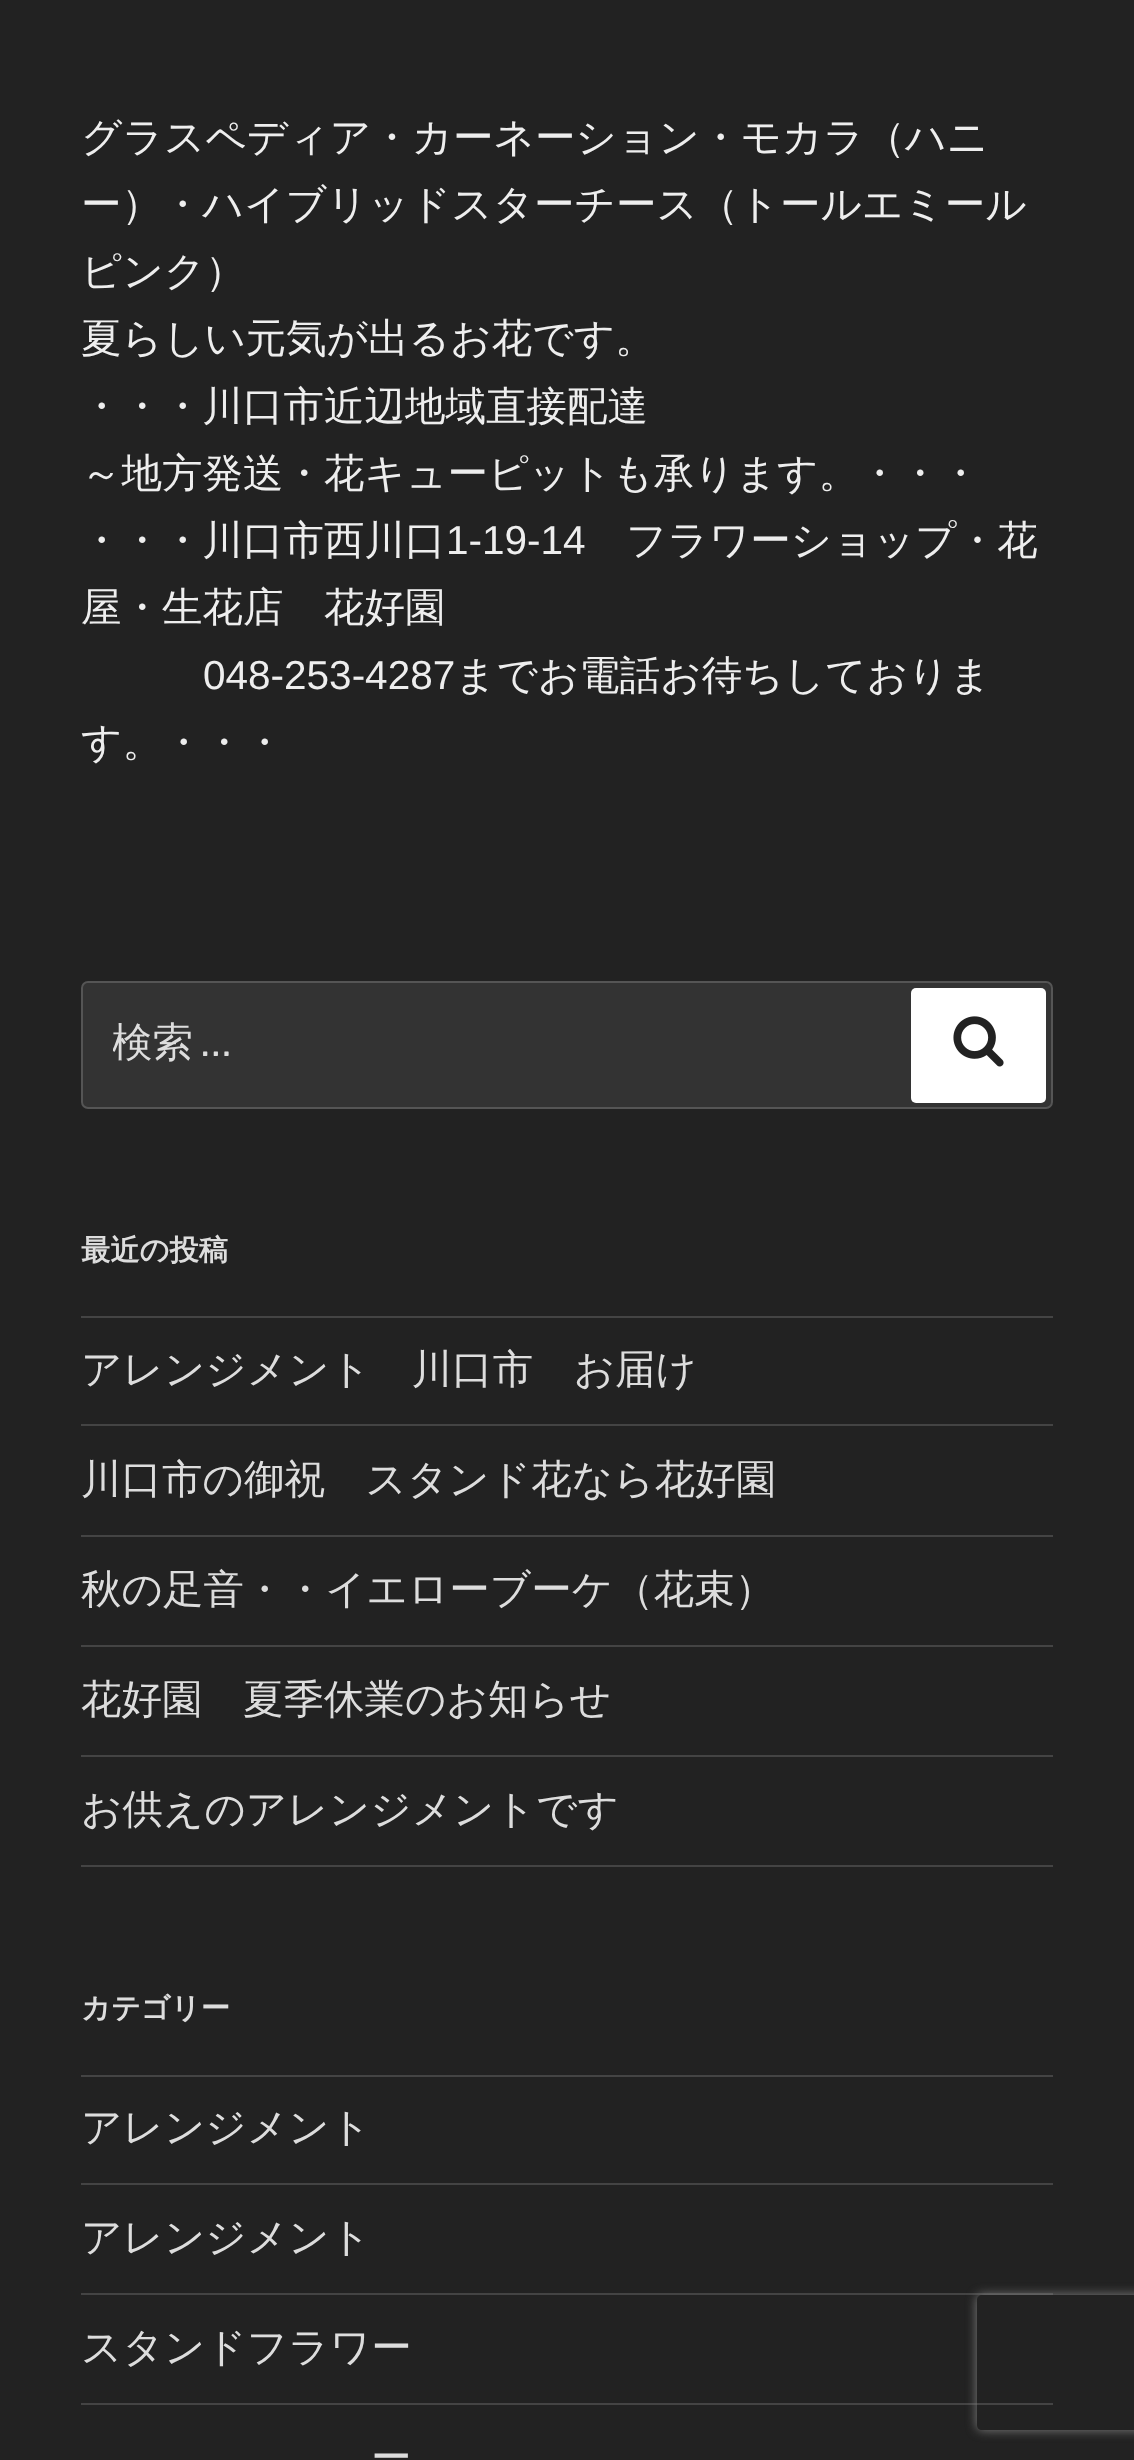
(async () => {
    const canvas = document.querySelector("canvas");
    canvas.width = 1134;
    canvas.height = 2460;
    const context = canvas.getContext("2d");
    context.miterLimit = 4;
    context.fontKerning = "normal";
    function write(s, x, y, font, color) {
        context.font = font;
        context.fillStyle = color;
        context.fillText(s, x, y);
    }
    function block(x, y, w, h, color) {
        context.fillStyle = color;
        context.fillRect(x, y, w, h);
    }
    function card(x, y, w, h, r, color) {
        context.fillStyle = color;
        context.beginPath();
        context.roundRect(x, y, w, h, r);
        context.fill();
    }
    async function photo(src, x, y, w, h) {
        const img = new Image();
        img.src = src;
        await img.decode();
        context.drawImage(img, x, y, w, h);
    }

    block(0, 0, 1134, 2460, "rgb(34, 34, 34)");
    write("グラスペディア・カーネーション・モカラ（ハニ", 81, 151, "500 40.5px WenQuanYi Zen Hei", "rgb(238, 238, 238)");
    write("ー）・ハイブリッドスターチース（トールエミール", 81, 218, "500 40.5px WenQuanYi Zen Hei", "rgb(238, 238, 238)");
    write("ピンク）", 81, 285, "500 40.5px WenQuanYi Zen Hei", "rgb(238, 238, 238)");
    write("夏らしい元気が出るお花です。", 81, 352, "500 40.5px WenQuanYi Zen Hei", "rgb(238, 238, 238)");
    write("・・・川口市近辺地域直接配達", 81, 420, "500 40.5px WenQuanYi Zen Hei", "rgb(238, 238, 238)");
    write("～地方発送・花キューピットも承ります。・・・", 81, 487, "500 40.5px WenQuanYi Zen Hei", "rgb(238, 238, 238)");
    write("・・・川口市西川口", 81, 554, "500 40.5px WenQuanYi Zen Hei", "rgb(238, 238, 238)");
    write("1-19-14", 446, 554, "40.5px Liberation Sans", "rgb(238, 238, 238)");
    write("フラワーショップ・花", 626, 554, "500 40.5px WenQuanYi Zen Hei", "rgb(238, 238, 238)");
    write("屋・生花店　花好園", 81, 621, "500 40.5px WenQuanYi Zen Hei", "rgb(238, 238, 238)");
    write("048-253-4287", 203, 689, "40.5px Liberation Sans", "rgb(238, 238, 238)");
    write("までお電話お待ちしておりま", 455, 689, "500 40.5px WenQuanYi Zen Hei", "rgb(238, 238, 238)");
    write("す。・・・", 81, 756, "500 40.5px WenQuanYi Zen Hei", "rgb(238, 238, 238)");
    context.fillStyle = "rgb(51, 51, 51)";
    context.beginPath();
    context.roundRect(82, 982, 970, 126, 6);
    context.fill();
    context.strokeStyle = "rgb(85, 85, 85)";
    context.lineWidth = 2;
    context.stroke();
    context.save();
    context.beginPath();
    context.rect(113, 1015, 900, 54);
    context.clip();
    write("検索", 112, 1056, "500 40.5px WenQuanYi Zen Hei", "rgb(221, 221, 221)");
    context.restore();
    write("…", 201, 1056, "40.5px Libre Franklin", "rgb(221, 221, 221)");
    card(911, 988, 135, 115, 5, "rgb(255, 255, 255)");
    await photo("media/1.png", 953, 1016, 51, 51);
    write("最近の投稿", 81, 1260, "bold 29.25px WenQuanYi Zen Hei", "rgb(221, 221, 221)");
    block(81, 1316, 972, 2, "rgb(68, 68, 68)");
    block(81, 1424, 972, 2, "rgb(68, 68, 68)");
    write("アレンジメント　川口市　お届け", 81, 1383, "500 40.5px WenQuanYi Zen Hei", "rgb(221, 221, 221)");
    block(81, 1535, 972, 2, "rgb(68, 68, 68)");
    write("川口市の御祝　スタンド花なら花好園", 81, 1493, "500 40.5px WenQuanYi Zen Hei", "rgb(221, 221, 221)");
    block(81, 1645, 972, 2, "rgb(68, 68, 68)");
    write("秋の足音・・イエローブーケ（花束）", 81, 1603, "500 40.5px WenQuanYi Zen Hei", "rgb(221, 221, 221)");
    block(81, 1755, 972, 2, "rgb(68, 68, 68)");
    write("花好園　夏季休業のお知らせ", 81, 1713, "500 40.5px WenQuanYi Zen Hei", "rgb(221, 221, 221)");
    block(81, 1865, 972, 2, "rgb(68, 68, 68)");
    write("お供えのアレンジメントです", 81, 1823, "500 40.5px WenQuanYi Zen Hei", "rgb(221, 221, 221)");
    write("カテゴリー", 81, 2018, "bold 29.25px WenQuanYi Zen Hei", "rgb(221, 221, 221)");
    block(81, 2075, 972, 2, "rgb(68, 68, 68)");
    block(81, 2183, 972, 2, "rgb(68, 68, 68)");
    write("アレンジメント", 81, 2141, "500 40.5px WenQuanYi Zen Hei", "rgb(221, 221, 221)");
    block(81, 2293, 972, 2, "rgb(68, 68, 68)");
    write("アレンジメント", 81, 2251, "500 40.5px WenQuanYi Zen Hei", "rgb(221, 221, 221)");
    block(81, 2403, 972, 2, "rgb(68, 68, 68)");
    write("スタンドフラワー", 81, 2361, "500 40.5px WenQuanYi Zen Hei", "rgb(221, 221, 221)");
    write("ー", 371, 2471, "500 40.5px WenQuanYi Zen Hei", "rgb(221, 221, 221)");
    context.save();
    context.beginPath();
    context.moveTo(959, 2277);
    context.lineTo(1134, 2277);
    context.lineTo(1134, 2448);
    context.lineTo(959, 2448);
    context.closePath();
    context.moveTo(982, 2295);
    context.lineTo(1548, 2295);
    context.bezierCurveTo(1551, 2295, 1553, 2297, 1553, 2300);
    context.lineTo(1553, 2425);
    context.bezierCurveTo(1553, 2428, 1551, 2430, 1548, 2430);
    context.lineTo(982, 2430);
    context.bezierCurveTo(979, 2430, 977, 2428, 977, 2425);
    context.lineTo(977, 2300);
    context.bezierCurveTo(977, 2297, 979, 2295, 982, 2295);
    context.closePath();
    context.clip("evenodd");
    context.fillStyle = "rgb(128, 128, 128)";
    context.filter = "blur(5.5px)";
    context.beginPath();
    context.roundRect(977, 2295, 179, 135, 5);
    context.fill();
    context.filter = "none";
    context.restore();
})();
